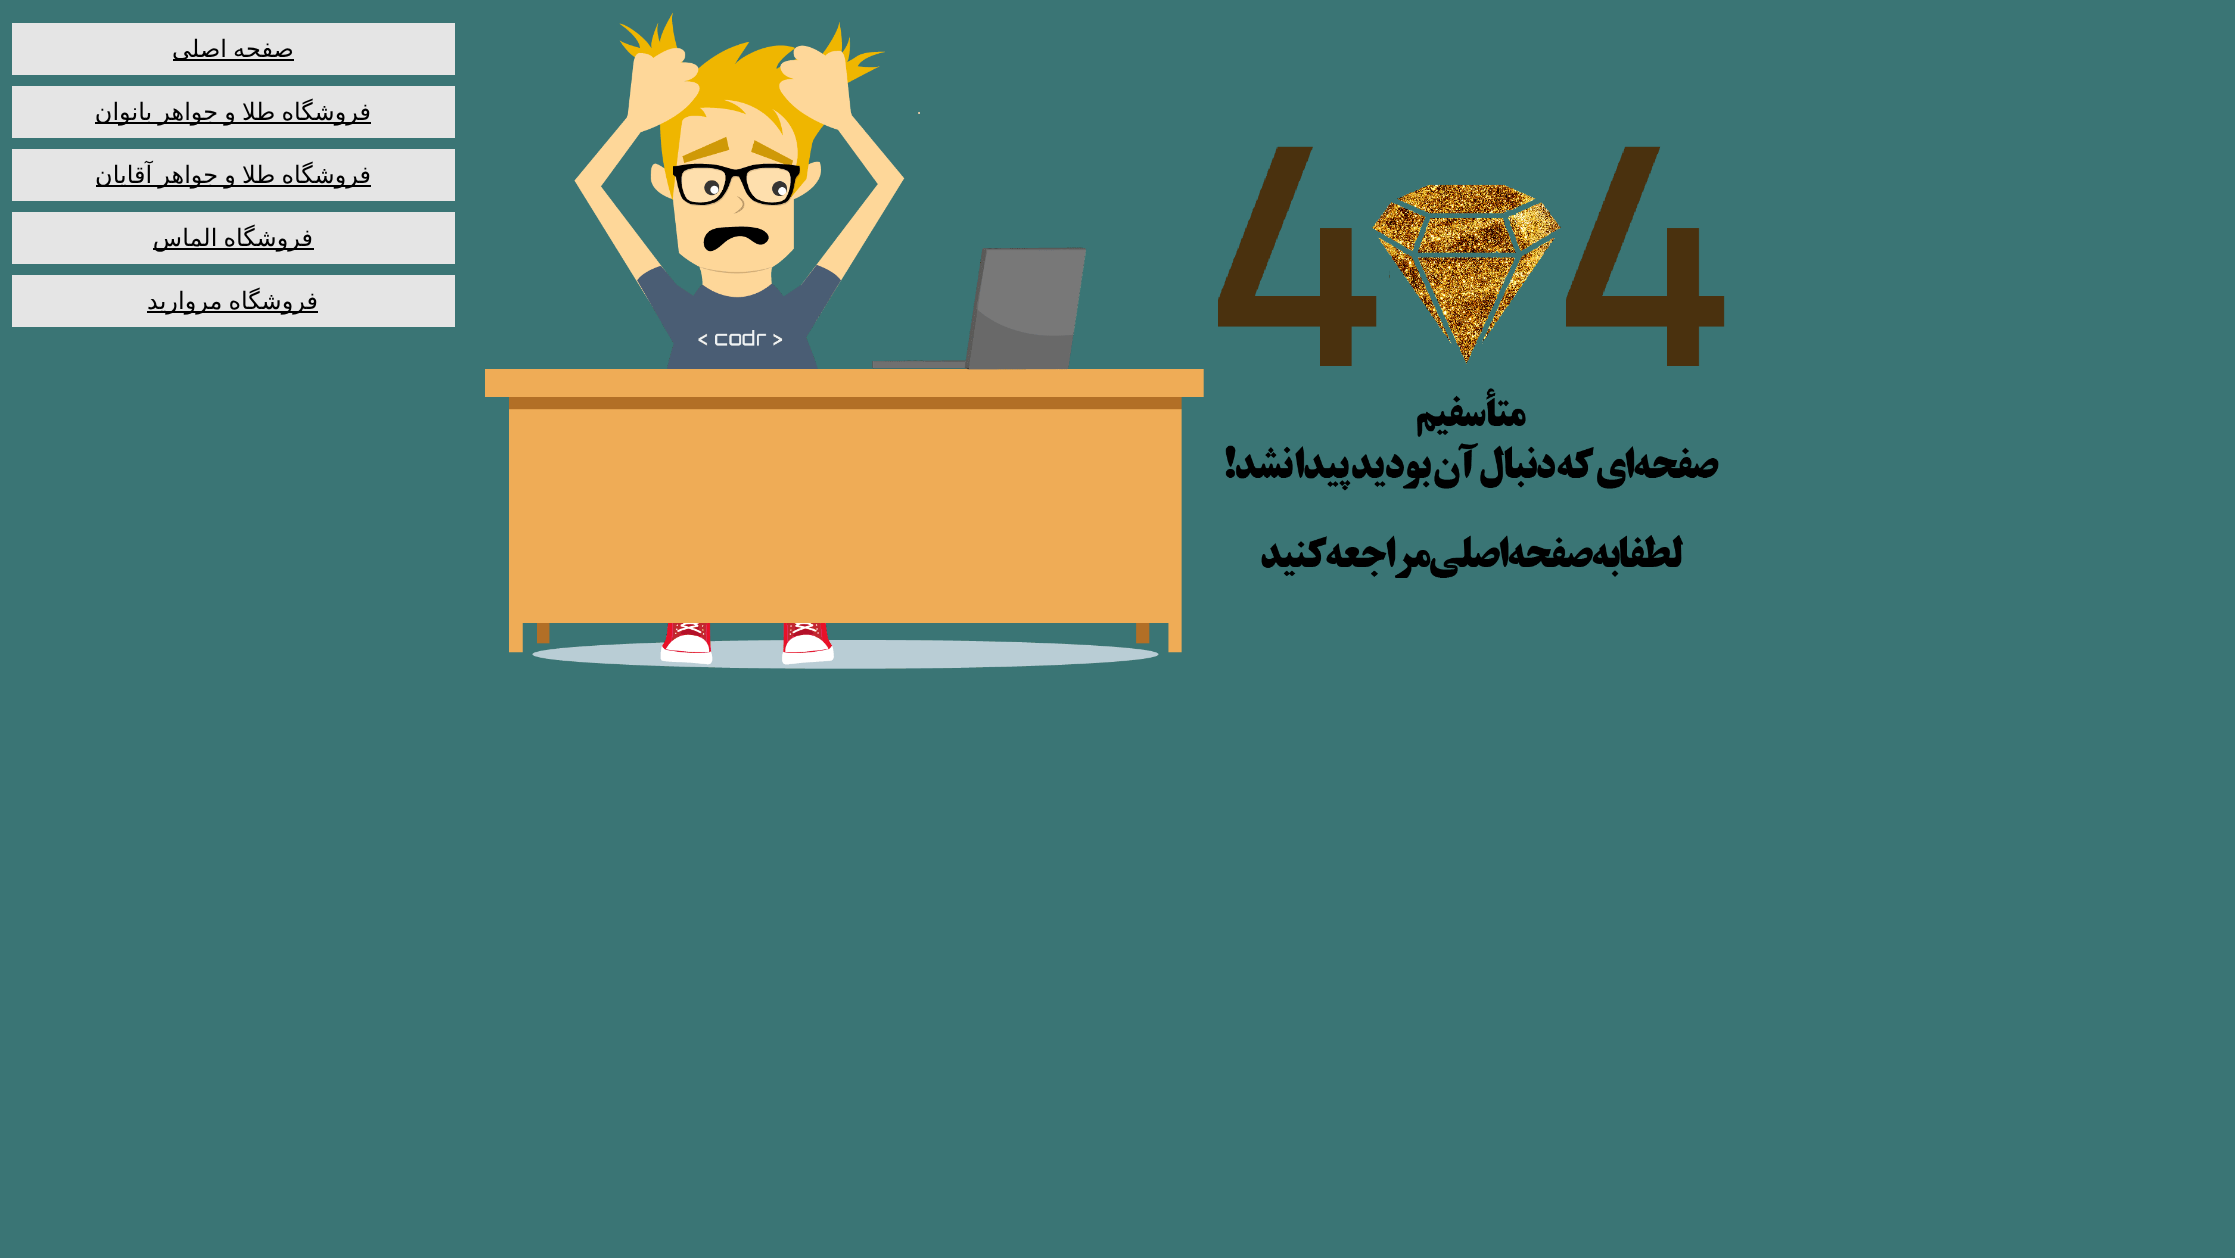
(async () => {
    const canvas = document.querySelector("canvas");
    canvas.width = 2235;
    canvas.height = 1258;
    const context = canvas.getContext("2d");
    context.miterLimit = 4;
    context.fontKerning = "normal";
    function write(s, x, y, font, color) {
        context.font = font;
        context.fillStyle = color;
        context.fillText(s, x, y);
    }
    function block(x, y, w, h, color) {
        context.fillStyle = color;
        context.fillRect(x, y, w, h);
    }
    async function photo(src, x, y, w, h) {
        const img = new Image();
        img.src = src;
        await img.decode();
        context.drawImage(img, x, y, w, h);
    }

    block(0, 0, 2235, 1258, "rgb(58, 117, 117)");
    await photo("media/1.png", 485, 12, 1240, 657);
    block(12, 23, 443, 52, "rgb(229, 229, 229)");
    block(173, 59, 121, 2, "rgb(0, 0, 0)");
    context.wordSpacing = "-1.5px";
    context.direction = "rtl";
    write("صفحه اصلی", 294, 57, "24px DejaVu Sans", "rgb(0, 0, 0)");
    block(12, 86, 443, 52, "rgb(229, 229, 229)");
    block(95, 122, 276, 2, "rgb(0, 0, 0)");
    write("فروشگاه طلا و جواهر بانوان", 371, 120, "24px DejaVu Sans", "rgb(0, 0, 0)");
    block(12, 149, 443, 52, "rgb(229, 229, 229)");
    block(96, 185, 275, 2, "rgb(0, 0, 0)");
    write("فروشگاه طلا و جواهر آقایان", 371, 183, "24px DejaVu Sans", "rgb(0, 0, 0)");
    block(12, 212, 443, 52, "rgb(229, 229, 229)");
    block(153, 248, 161, 2, "rgb(0, 0, 0)");
    write("فروشگاه الماس", 313, 246, "24px DejaVu Sans", "rgb(0, 0, 0)");
    block(12, 275, 443, 52, "rgb(229, 229, 229)");
    block(147, 311, 171, 2, "rgb(0, 0, 0)");
    write("فروشگاه مروارید", 318, 309, "24px DejaVu Sans", "rgb(0, 0, 0)");
})();
